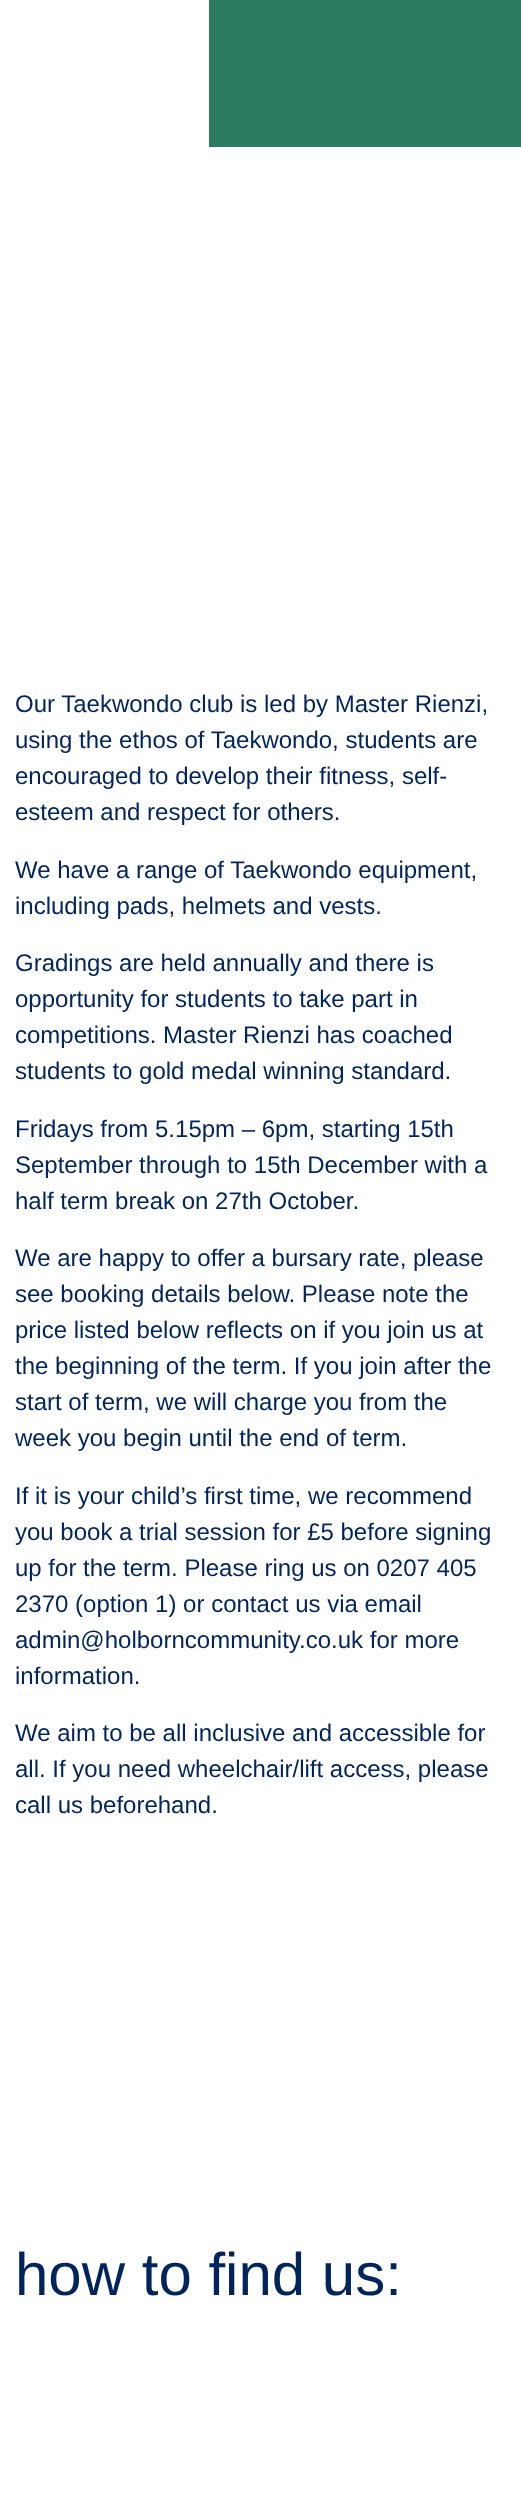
(async () => {
    const canvas = document.querySelector("canvas");
    canvas.width = 521;
    canvas.height = 2518;
    const context = canvas.getContext("2d");
    context.miterLimit = 4;
    context.fontKerning = "normal";
    function write(s, x, y, font, color) {
        context.font = font;
        context.fillStyle = color;
        context.fillText(s, x, y);
    }
    function block(x, y, w, h, color) {
        context.fillStyle = color;
        context.fillRect(x, y, w, h);
    }

    block(0, 0, 521, 2518, "rgb(255, 255, 255)");
    block(209, 0, 312, 147, "rgb(44, 125, 95)");
    write("Our Taekwondo club is led by Master Rienzi,", 15, 712, "24px Liberation Sans", "rgb(0, 36, 91)");
    write("using the ethos of Taekwondo, students are", 15, 748, "24px Liberation Sans", "rgb(0, 36, 91)");
    write("encouraged to develop their fitness, self-", 15, 784, "24px Liberation Sans", "rgb(0, 36, 91)");
    write("esteem and respect for others.", 15, 820, "24px Liberation Sans", "rgb(0, 36, 91)");
    write("We have a range of Taekwondo equipment,", 15, 878, "24px Liberation Sans", "rgb(0, 36, 91)");
    write("including pads, helmets and vests.", 15, 914, "24px Liberation Sans", "rgb(0, 36, 91)");
    write("Gradings are held annually and there is", 15, 971, "24px Liberation Sans", "rgb(0, 36, 91)");
    write("opportunity for students to take part in", 15, 1007, "24px Liberation Sans", "rgb(0, 36, 91)");
    write("competitions. Master Rienzi has coached", 15, 1043, "24px Liberation Sans", "rgb(0, 36, 91)");
    write("students to gold medal winning standard.", 15, 1079, "24px Liberation Sans", "rgb(0, 36, 91)");
    write("Fridays from 5.15pm – 6pm, starting 15th", 15, 1137, "24px Liberation Sans", "rgb(0, 36, 91)");
    write("September through to 15th December with a", 15, 1173, "24px Liberation Sans", "rgb(0, 36, 91)");
    write("half term break on 27th October.", 15, 1209, "24px Liberation Sans", "rgb(0, 36, 91)");
    write("We are happy to offer a bursary rate, please", 15, 1266, "24px Liberation Sans", "rgb(0, 36, 91)");
    write("see booking details below. Please note the", 15, 1302, "24px Liberation Sans", "rgb(0, 36, 91)");
    write("price listed below reflects on if you join us at", 15, 1338, "24px Liberation Sans", "rgb(0, 36, 91)");
    write("the beginning of the term. If you join after the", 15, 1374, "24px Liberation Sans", "rgb(0, 36, 91)");
    write("start of term, we will charge you from the", 15, 1410, "24px Liberation Sans", "rgb(0, 36, 91)");
    write("week you begin until the end of term.", 15, 1446, "24px Liberation Sans", "rgb(0, 36, 91)");
    write("If it is your child’s first time, we recommend", 15, 1504, "24px Liberation Sans", "rgb(0, 36, 91)");
    write("you book a trial session for £5 before signing", 15, 1540, "24px Liberation Sans", "rgb(0, 36, 91)");
    write("up for the term. Please ring us on 0207 405", 15, 1576, "24px Liberation Sans", "rgb(0, 36, 91)");
    write("2370 (option 1) or contact us via email", 15, 1612, "24px Liberation Sans", "rgb(0, 36, 91)");
    write("admin@holborncommunity.co.uk for more", 15, 1648, "24px Liberation Sans", "rgb(0, 36, 91)");
    write("information.", 15, 1684, "24px Liberation Sans", "rgb(0, 36, 91)");
    write("We aim to be all inclusive and accessible for", 15, 1741, "24px Liberation Sans", "rgb(0, 36, 91)");
    write("all. If you need wheelchair/lift access, please", 15, 1777, "24px Liberation Sans", "rgb(0, 36, 91)");
    write("call us beforehand.", 15, 1813, "24px Liberation Sans", "rgb(0, 36, 91)");
    write("how to find us:", 15, 2295, "60px Liberation Sans", "rgb(0, 36, 91)");
})();
